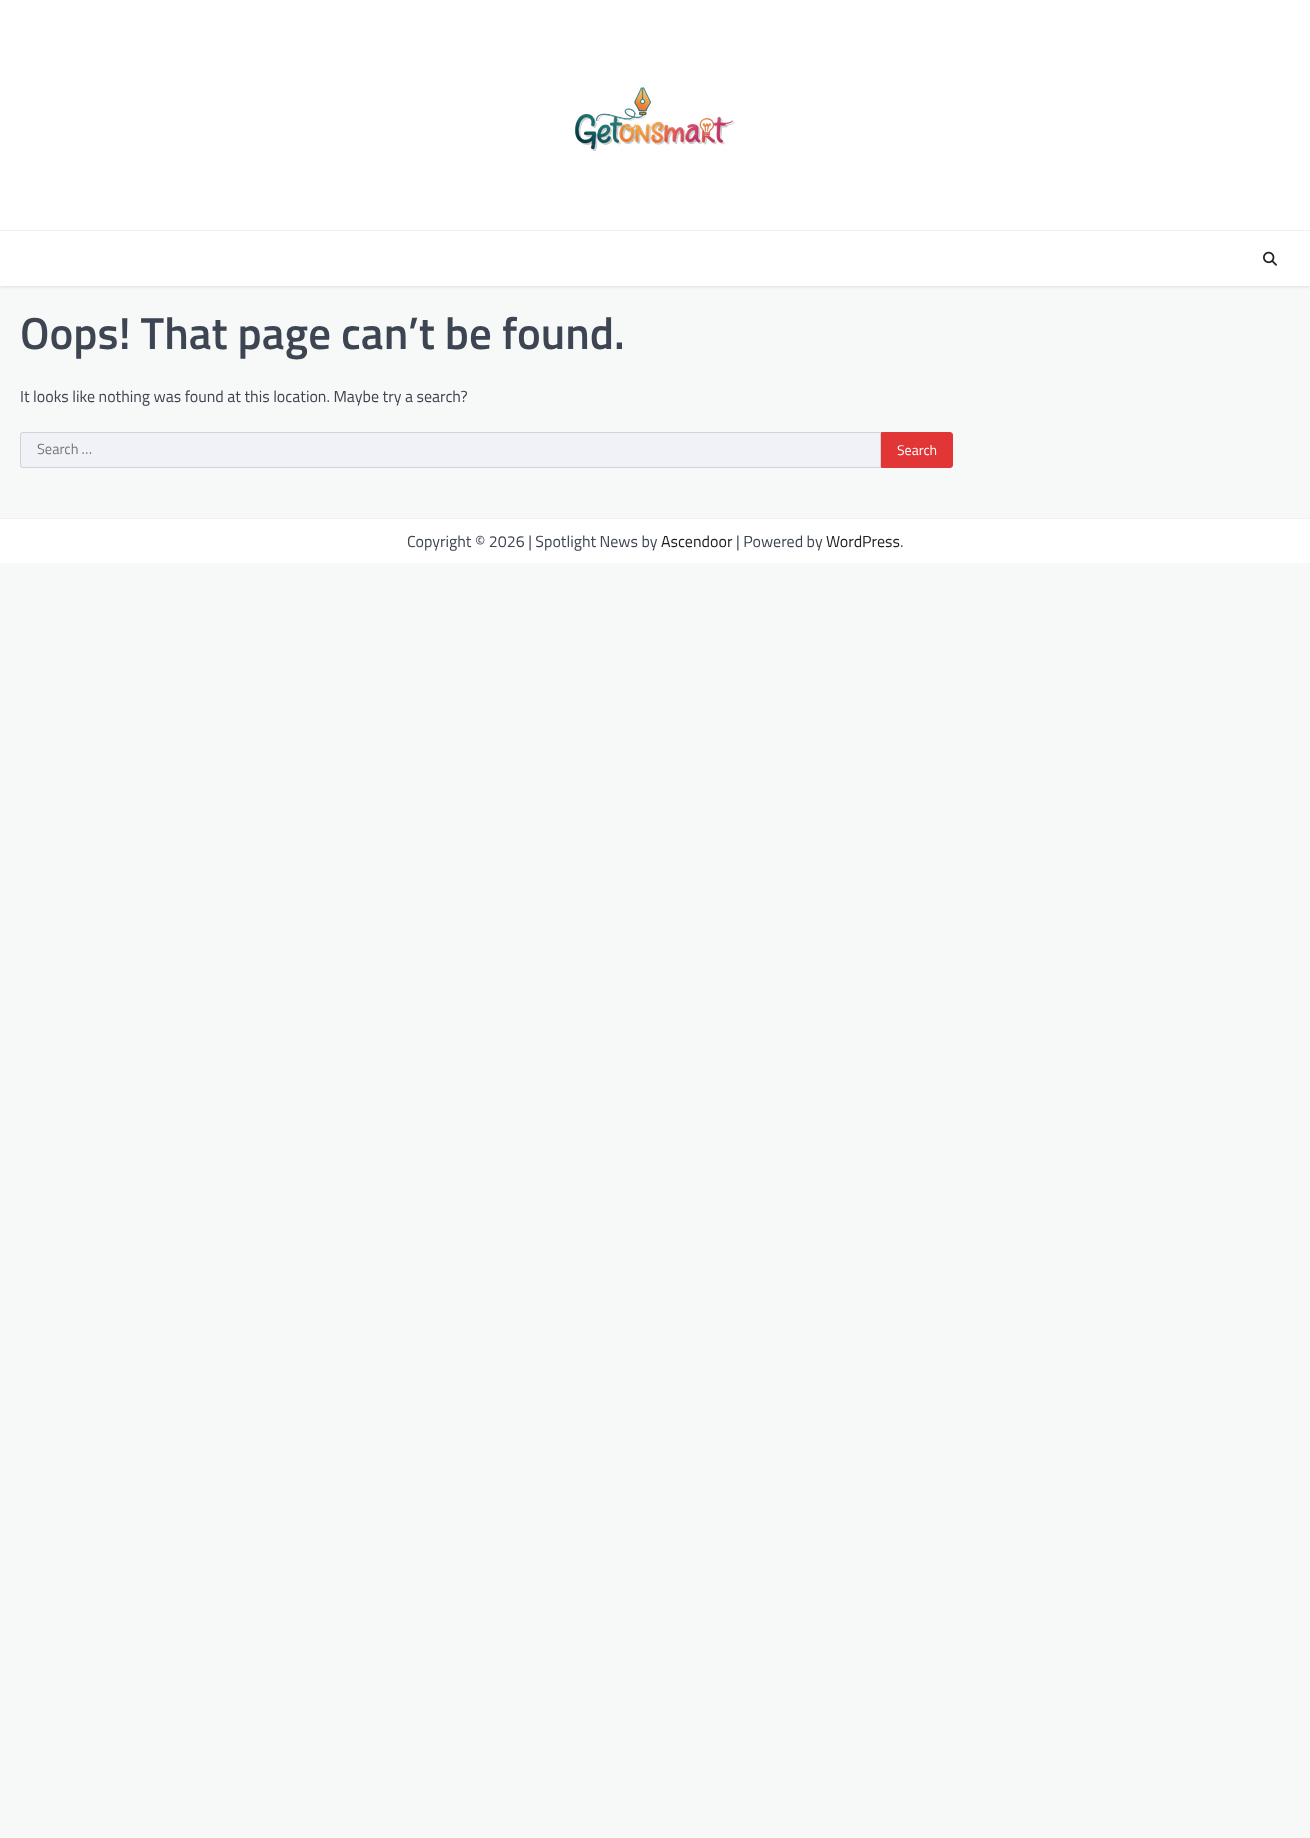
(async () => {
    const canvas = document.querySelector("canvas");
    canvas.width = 1310;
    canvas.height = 1838;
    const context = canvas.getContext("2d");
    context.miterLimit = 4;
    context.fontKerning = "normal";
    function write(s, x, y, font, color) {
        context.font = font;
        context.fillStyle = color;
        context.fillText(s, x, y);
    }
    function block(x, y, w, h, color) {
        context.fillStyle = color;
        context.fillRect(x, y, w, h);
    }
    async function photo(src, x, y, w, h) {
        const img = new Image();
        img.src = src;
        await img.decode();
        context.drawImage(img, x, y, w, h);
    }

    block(0, 0, 1310, 1838, "rgb(247, 249, 248)");
    context.fillStyle = "rgba(0, 0, 0, 0.1)";
    context.filter = "blur(1.5px)";
    context.beginPath();
    context.rect(0, 1, 1310, 286);
    context.fill();
    context.filter = "none";
    block(0, 0, 1310, 230, "rgb(255, 255, 255)");
    await photo("media/1.png", 575, 87, 160, 64);
    block(0, 231, 1310, 55, "rgb(255, 255, 255)");
    block(0, 230, 1310, 1, "rgb(241, 241, 241)");
    await photo("media/2.png", 1263, 251, 14, 15);
    write("Oops! That page can’t be found.", 20, 349, "600 45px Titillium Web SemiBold", "rgb(61, 68, 82)");
    write("It looks like nothing was found at this location. Maybe try a search?", 20, 402, "16px Titillium Web", "rgb(61, 68, 82)");
    context.fillStyle = "rgb(240, 242, 247)";
    context.beginPath();
    context.roundRect(20, 432, 861, 36, [3, 0, 0, 3]);
    context.fill();
    context.beginPath();
    context.roundRect(20.5, 432.5, 860, 35, [2.5, 0, 0, 2.5]);
    context.strokeStyle = "rgba(32, 33, 36, 0.15)";
    context.stroke();
    write("Search …", 37, 454, "14.5px Titillium Web", "rgb(117, 117, 117)");
    context.fillStyle = "rgb(226, 54, 54)";
    context.beginPath();
    context.roundRect(881.5, 432.5, 71, 35, [0, 2.5, 2.5, 0]);
    context.fill();
    context.strokeStyle = "rgb(226, 54, 54)";
    context.stroke();
    write("Search", 897, 455, "14px Titillium Web", "rgb(255, 255, 255)");
    block(0, 519, 1310, 44, "rgb(255, 255, 255)");
    block(0, 518, 1310, 1, "rgb(241, 241, 241)");
    write("Copyright © 2026 | Spotlight News by", 407, 547, "16px Titillium Web", "rgb(61, 68, 82)");
    write("Ascendoor", 661, 547, "16px Titillium Web", "rgb(32, 33, 36)");
    write("| Powered by", 736, 547, "16px Titillium Web", "rgb(61, 68, 82)");
    write("WordPress", 826, 547, "16px Titillium Web", "rgb(32, 33, 36)");
    write(".", 900, 547, "16px Titillium Web", "rgb(61, 68, 82)");
})();
